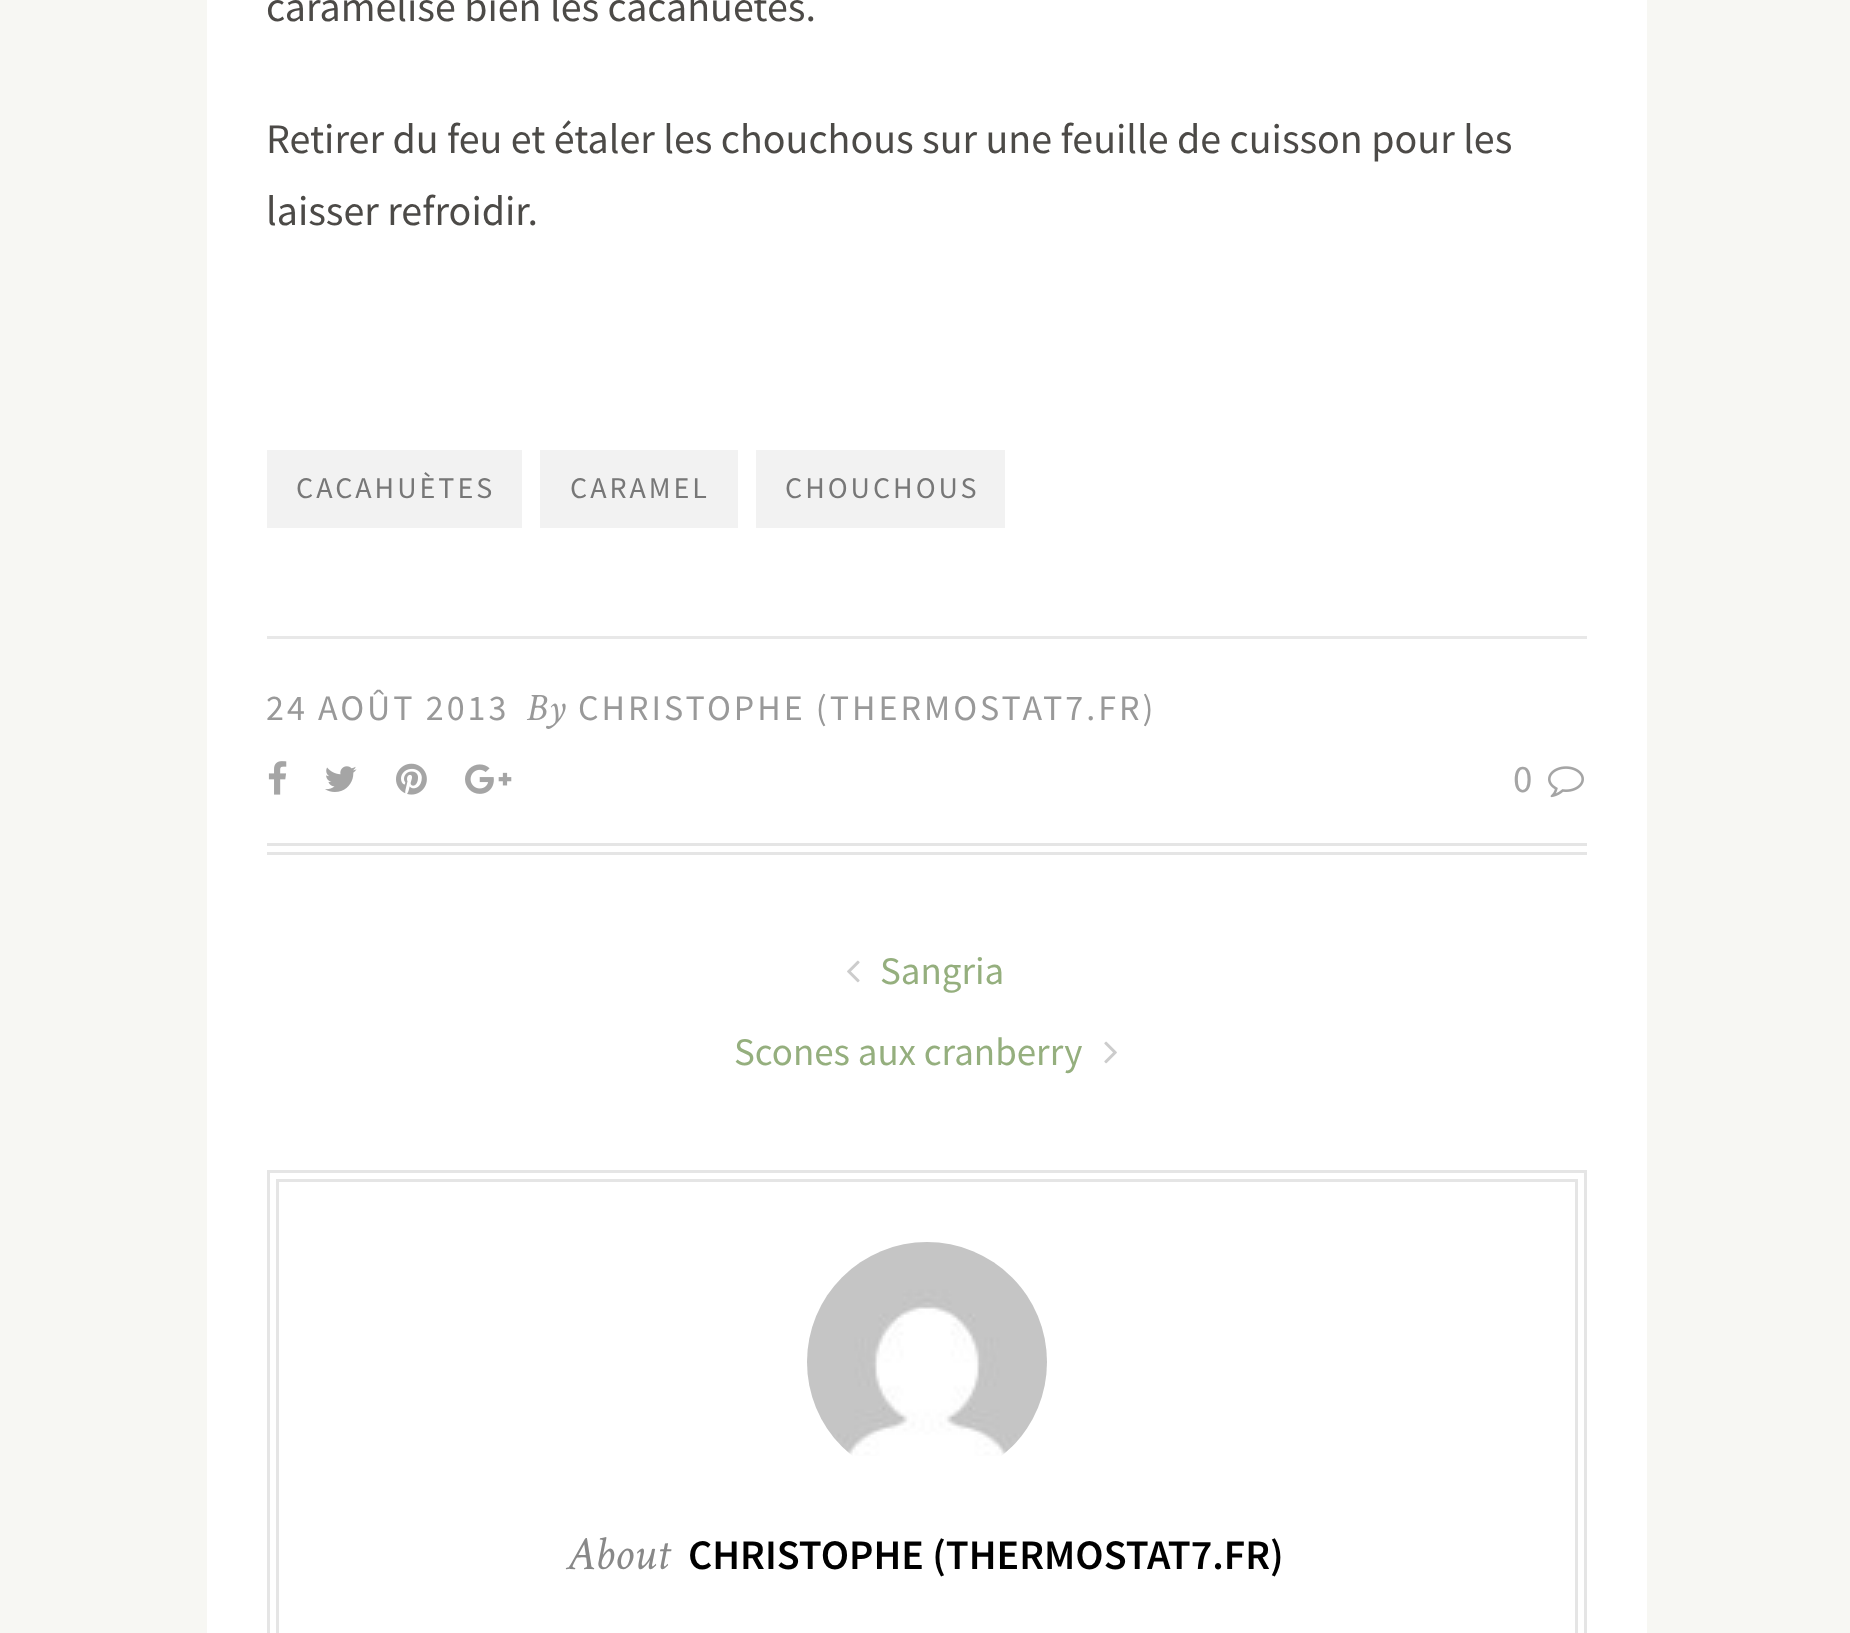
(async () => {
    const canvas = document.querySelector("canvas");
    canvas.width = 1850;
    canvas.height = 1633;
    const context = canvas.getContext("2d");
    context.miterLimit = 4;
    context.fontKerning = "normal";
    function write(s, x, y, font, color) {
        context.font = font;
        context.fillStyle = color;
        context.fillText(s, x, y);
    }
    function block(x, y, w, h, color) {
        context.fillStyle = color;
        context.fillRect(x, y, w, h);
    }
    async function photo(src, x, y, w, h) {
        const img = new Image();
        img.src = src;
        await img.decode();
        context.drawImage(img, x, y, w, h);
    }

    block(0, 0, 1850, 1633, "rgb(247, 247, 243)");
    block(207, 0, 1440, 1633, "rgb(255, 255, 255)");
    write("caramélise bien les cacahuètes.", 266, 21, "42px Source Sans Pro", "rgb(76, 74, 71)");
    write("Retirer du feu et étaler les chouchous sur une feuille de cuisson pour les", 266, 153, "42px Source Sans Pro", "rgb(76, 74, 71)");
    write("laisser refroidir.", 266, 225, "42px Source Sans Pro", "rgb(76, 74, 71)");
    block(267, 450, 255, 78, "rgb(242, 242, 242)");
    context.letterSpacing = "3px";
    write("CACAHUÈTES", 296, 498, "30px Source Sans Pro", "rgb(119, 119, 119)");
    block(540, 450, 198, 78, "rgb(242, 242, 242)");
    write("CARAMEL", 570, 498, "30px Source Sans Pro", "rgb(119, 119, 119)");
    block(756, 450, 249, 78, "rgb(242, 242, 242)");
    write("CHOUCHOUS", 785, 498, "30px Source Sans Pro", "rgb(119, 119, 119)");
    block(267, 636, 1320, 3, "rgb(232, 232, 232)");
    block(267, 843, 1320, 3, "rgb(229, 229, 229)");
    block(267, 852, 1320, 3, "rgb(229, 229, 229)");
    write("24 AOÛT 2013", 266, 720, "36px Source Sans Pro", "rgb(153, 153, 153)");
    context.letterSpacing = "0px";
    write("By", 526, 720, "italic 39px Crimson Text", "rgb(153, 153, 153)");
    context.letterSpacing = "3px";
    write("CHRISTOPHE (THERMOSTAT7.FR)", 578, 720, "36px Source Sans Pro", "rgb(153, 153, 153)");
    await photo("media/1.png", 268, 761, 19, 34);
    await photo("media/2.png", 325, 766, 32, 26);
    await photo("media/3.png", 396, 763, 31, 32);
    await photo("media/4.png", 465, 764, 47, 30);
    context.letterSpacing = "0px";
    write("0", 1513, 792, "39px Source Sans Pro", "rgb(165, 165, 165)");
    await photo("media/5.png", 1548, 766, 36, 32);
    await photo("media/6.png", 847, 960, 13, 23);
    write("Sangria", 880, 984, "39px Source Sans Pro", "rgb(149, 175, 126)");
    write("Scones aux cranberry", 734, 1065, "39px Source Sans Pro", "rgb(149, 175, 126)");
    await photo("media/7.png", 1104, 1041, 13, 23);
    context.strokeStyle = "rgb(229, 229, 229)";
    context.lineWidth = 3;
    context.strokeRect(268.5, 1171.5, 1317, 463);
    context.strokeRect(277.5, 1180.5, 1299, 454);
    await photo("media/8.png", 807, 1242, 240, 214);
    write("About", 567, 1569, "italic 48px Crimson Text", "rgb(136, 136, 136)");
    write("CHRISTOPHE (THERMOSTAT7.FR)", 688, 1569, "600 42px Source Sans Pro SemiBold", "rgb(0, 0, 0)");
})();
